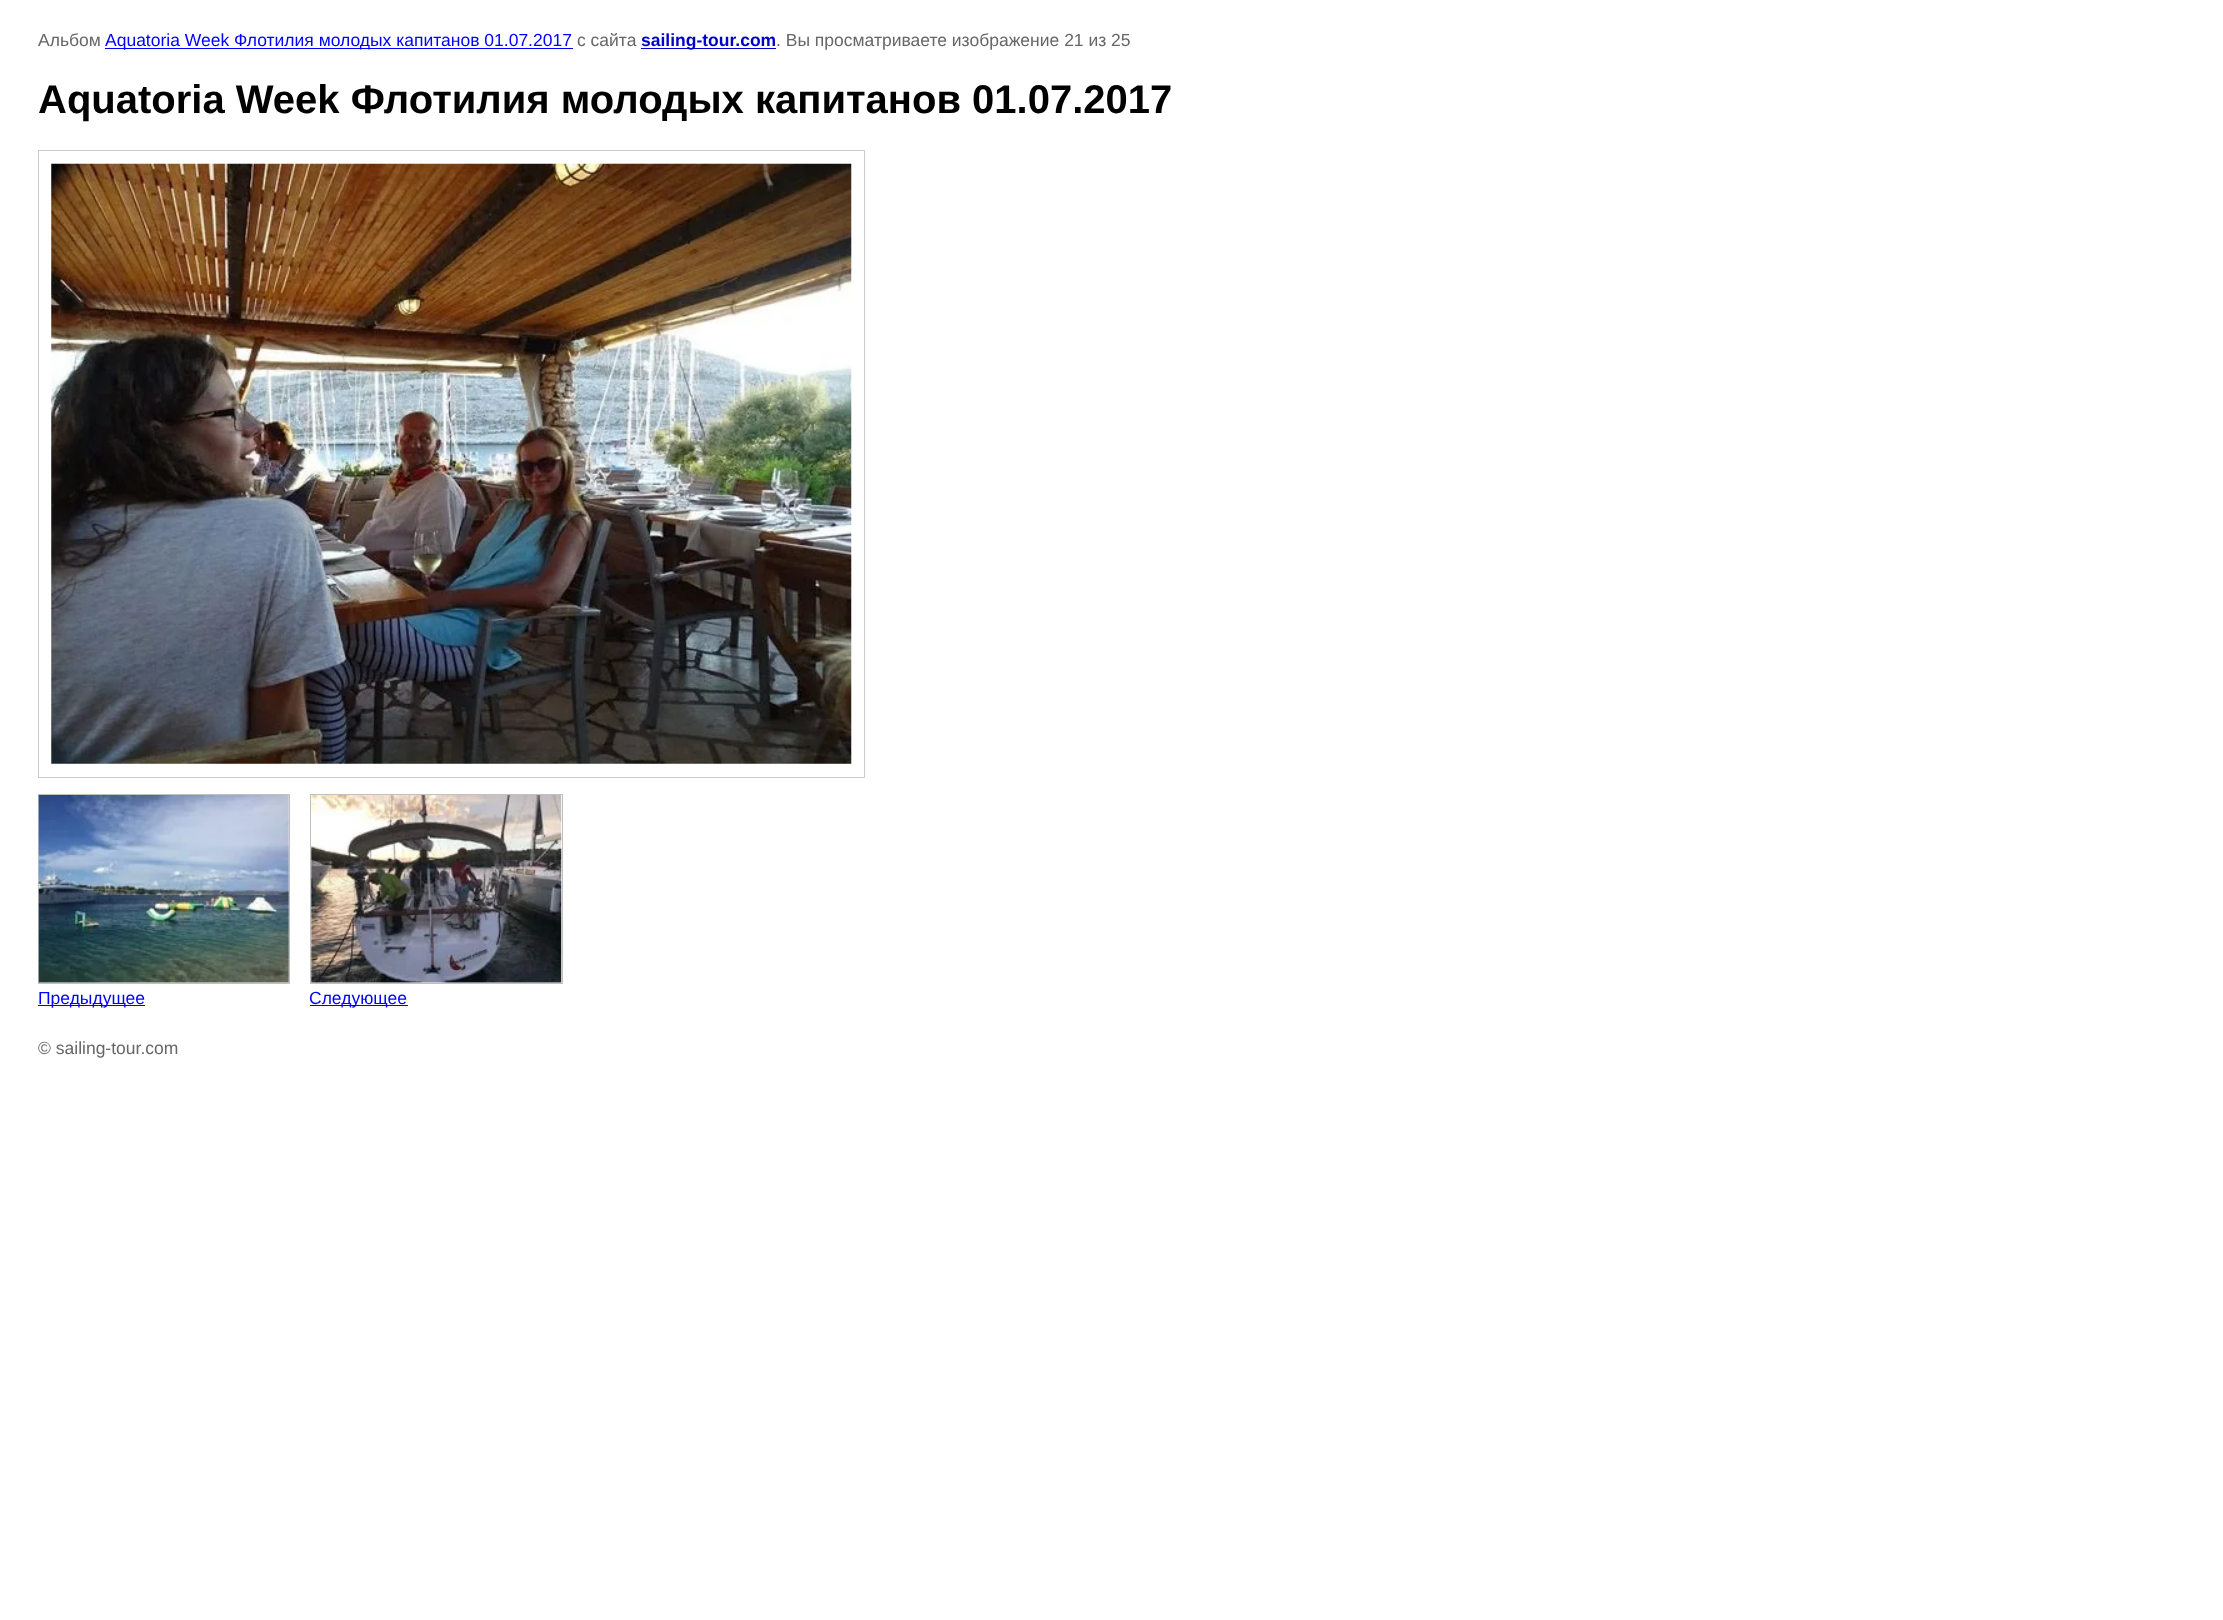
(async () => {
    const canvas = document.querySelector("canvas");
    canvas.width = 2223;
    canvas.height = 1620;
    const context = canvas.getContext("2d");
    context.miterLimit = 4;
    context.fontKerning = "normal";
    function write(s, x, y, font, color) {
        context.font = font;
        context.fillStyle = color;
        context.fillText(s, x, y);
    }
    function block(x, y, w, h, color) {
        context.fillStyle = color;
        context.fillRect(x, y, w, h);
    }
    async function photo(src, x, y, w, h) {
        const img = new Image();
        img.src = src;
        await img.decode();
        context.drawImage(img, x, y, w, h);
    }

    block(0, 0, 2223, 1620, "rgb(255, 255, 255)");
    write("Альбом", 38, 46, "17.5px Liberation Sans", "rgb(102, 102, 102)");
    block(105, 48, 468, 1, "rgb(0, 0, 255)");
    write("Aquatoria Week Флотилия молодых капитанов 01.07.2017", 105, 46, "17.5px Liberation Sans", "rgb(0, 0, 255)");
    write("с сайта", 577, 46, "17.5px Liberation Sans", "rgb(102, 102, 102)");
    block(641, 48, 135, 1, "rgb(0, 0, 204)");
    write("sailing-tour.com", 641, 46, "bold 17.5px Liberation Sans", "rgb(0, 0, 204)");
    write(". Вы просматриваете изображение 21 из 25", 776, 46, "17.5px Liberation Sans", "rgb(102, 102, 102)");
    write("Aquatoria Week Флотилия молодых капитанов 01.07.2017", 38, 113, "bold 40px Liberation Sans", "rgb(0, 0, 0)");
    context.strokeStyle = "rgb(204, 204, 204)";
    context.strokeRect(38.5, 150.5, 826, 627);
    await photo("media/1.png", 51, 163, 801, 601);
    context.strokeStyle = "rgb(192, 192, 192)";
    context.strokeRect(38.5, 794.5, 251, 189);
    await photo("media/2.png", 38, 795, 251, 188);
    block(38, 1005, 107, 1, "rgb(0, 0, 255)");
    write("Предыдущее", 38, 1004, "17.5px Liberation Sans", "rgb(0, 0, 255)");
    context.strokeRect(310.5, 794.5, 252, 189);
    await photo("media/3.png", 311, 795, 251, 188);
    block(310, 1005, 98, 1, "rgb(0, 0, 255)");
    write("Следующее", 309, 1004, "17.5px Liberation Sans", "rgb(0, 0, 255)");
    write("© sailing-tour.com", 38, 1054, "17.5px Liberation Sans", "rgb(102, 102, 102)");
})();
